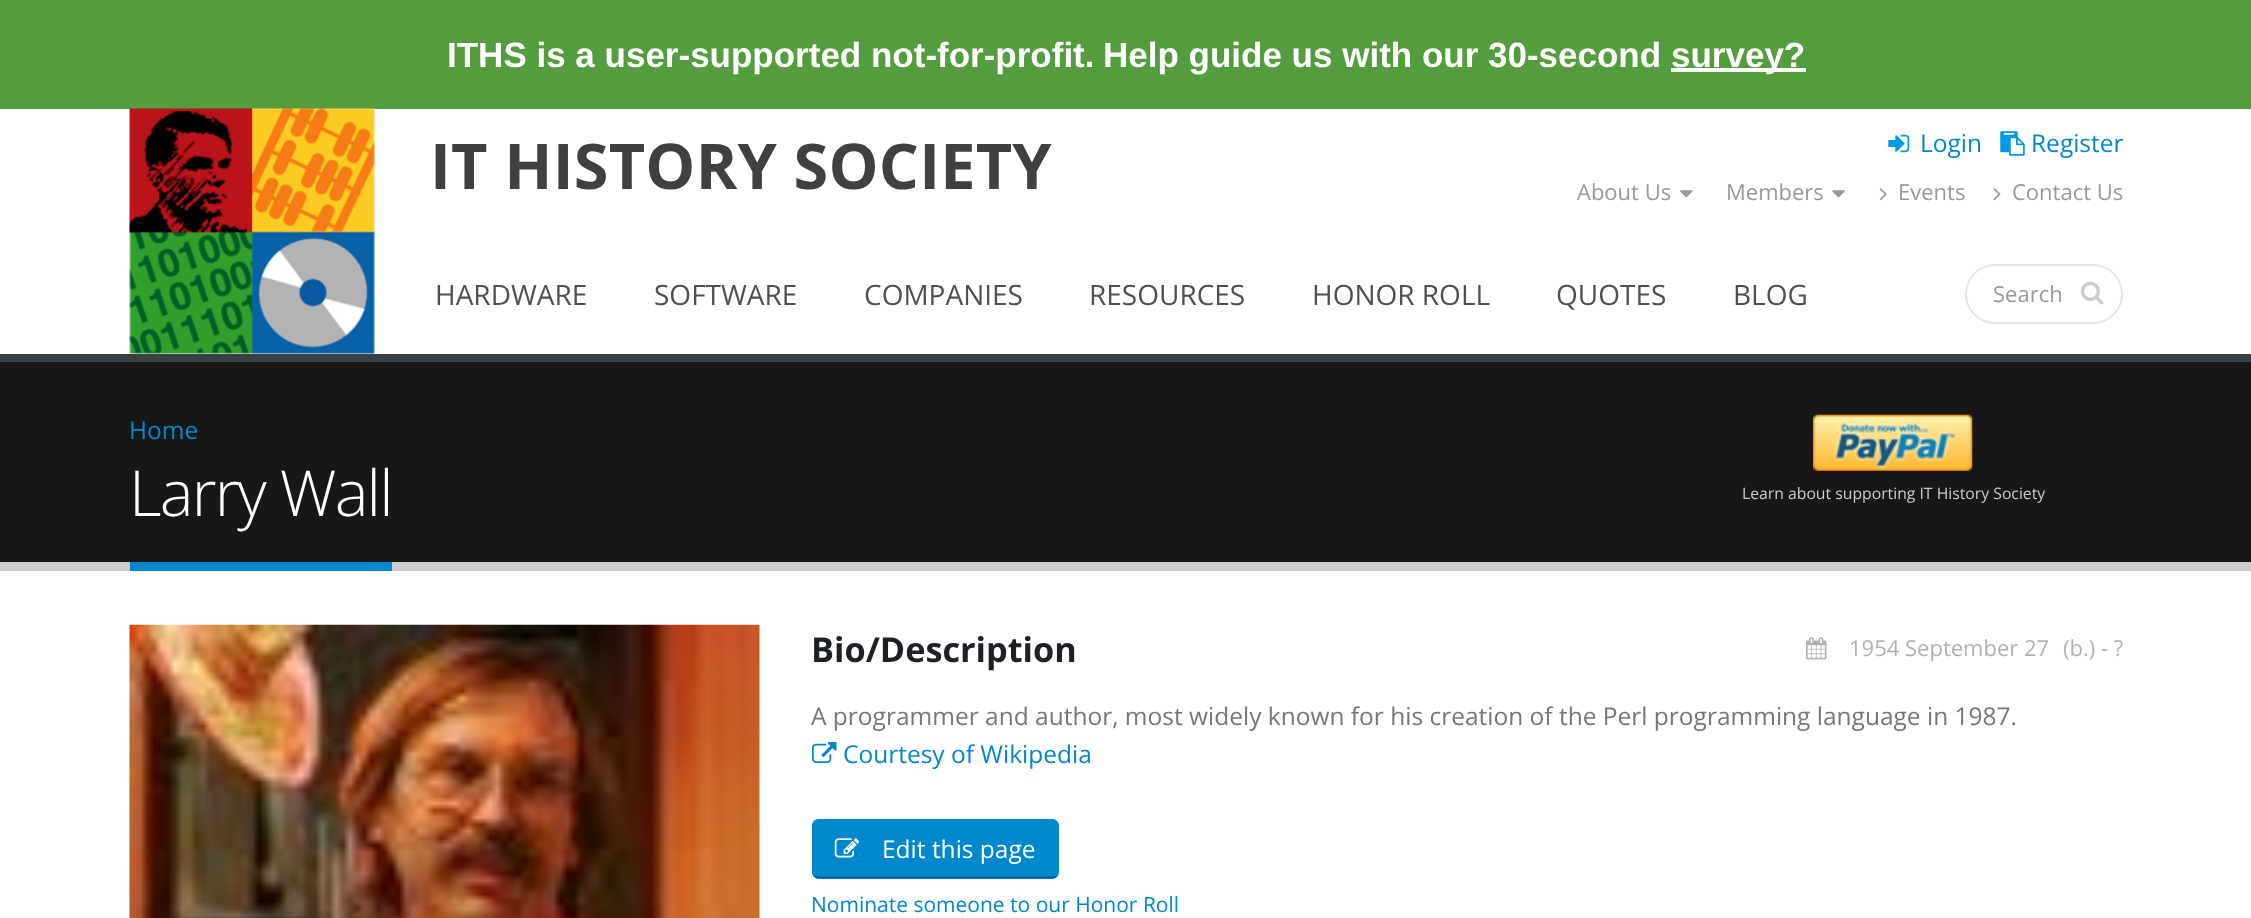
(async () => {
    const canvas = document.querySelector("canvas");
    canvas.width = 2251;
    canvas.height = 918;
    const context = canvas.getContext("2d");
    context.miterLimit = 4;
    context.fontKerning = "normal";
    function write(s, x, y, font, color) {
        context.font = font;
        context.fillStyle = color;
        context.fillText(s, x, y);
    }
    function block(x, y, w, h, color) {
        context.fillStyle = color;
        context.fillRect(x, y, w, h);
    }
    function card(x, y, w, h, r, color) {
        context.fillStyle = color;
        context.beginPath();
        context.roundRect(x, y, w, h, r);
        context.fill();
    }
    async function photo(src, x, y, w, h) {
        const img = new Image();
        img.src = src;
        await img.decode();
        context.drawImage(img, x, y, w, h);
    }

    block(0, 0, 2251, 918, "rgb(255, 255, 255)");
    block(0, 0, 2251, 109, "rgb(84, 157, 62)");
    write("ITHS is a user-supported not-for-profit.", 447, 67, "bold 35px Liberation Sans", "rgb(255, 255, 255)");
    write("Help guide us with our 30-second", 1103, 67, "bold 35px Liberation Sans", "rgb(255, 255, 255)");
    block(1671, 68, 135, 4, "rgb(255, 255, 255)");
    write("survey?", 1671, 67, "bold 35px Liberation Sans", "rgb(255, 255, 255)");
    await photo("media/1.png", 129, 108, 246, 246);
    context.letterSpacing = "0.2px";
    write("IT HISTORY SOCIETY", 430, 189, "bold 63px Open Sans", "rgb(64, 64, 64)");
    await photo("media/2.png", 1888, 134, 22, 19);
    context.letterSpacing = "0px";
    write("Login", 1920, 152, "24.5px Open Sans", "rgb(0, 136, 204)");
    await photo("media/3.png", 2000, 131, 25, 25);
    write("Register", 2031, 152, "24.5px Open Sans", "rgb(0, 136, 204)");
    write("About Us", 1577, 200, "22px Open Sans", "rgb(153, 153, 153)");
    await photo("media/4.png", 1680, 190, 13, 8);
    write("Members", 1726, 200, "22px Open Sans", "rgb(153, 153, 153)");
    await photo("media/5.png", 1832, 190, 13, 8);
    await photo("media/6.png", 1879, 188, 8, 13);
    write("Events", 1898, 200, "22px Open Sans", "rgb(153, 153, 153)");
    await photo("media/7.png", 1993, 188, 8, 13);
    write("Contact Us", 2012, 200, "22px Open Sans", "rgb(153, 153, 153)");
    write("HARDWARE", 435, 305, "28px Open Sans", "rgb(80, 80, 80)");
    write("SOFTWARE", 654, 305, "28px Open Sans", "rgb(80, 80, 80)");
    write("COMPANIES", 864, 305, "28px Open Sans", "rgb(80, 80, 80)");
    write("RESOURCES", 1089, 305, "28px Open Sans", "rgb(80, 80, 80)");
    write("HONOR ROLL", 1312, 305, "28px Open Sans", "rgb(80, 80, 80)");
    write("QUOTES", 1556, 305, "28px Open Sans", "rgb(80, 80, 80)");
    write("BLOG", 1733, 305, "28px Open Sans", "rgb(80, 80, 80)");
    context.beginPath();
    context.roundRect(1966, 265, 156, 58, 29);
    context.strokeStyle = "rgb(229, 229, 229)";
    context.lineWidth = 2;
    context.stroke();
    write("Search", 1993, 302, "22px Open Sans", "rgb(153, 153, 153)");
    await photo("media/8.png", 2080, 281, 24, 24);
    block(0, 362, 2251, 200, "rgb(23, 23, 23)");
    block(0, 354, 2251, 8, "rgb(56, 64, 69)");
    block(0, 562, 2251, 9, "rgb(204, 204, 204)");
    write("Home", 129, 439, "24.5px Open Sans", "rgb(0, 136, 204)");
    block(130, 562, 262, 9, "rgb(0, 136, 204)");
    context.letterSpacing = "-1.75px";
    write("Larry Wall", 129, 516, "300 63.5px Open Sans", "rgb(255, 255, 255)");
    await photo("media/9.png", 1813, 414, 160, 57);
    context.letterSpacing = "0px";
    write("Learn about supporting IT History Society", 1742, 499, "15.75px Open Sans", "rgb(204, 204, 204)");
    await photo("media/10.png", 129, 624, 631, 294);
    write("Bio/Description", 811, 662, "bold 34.25px Open Sans", "rgb(29, 33, 39)");
    await photo("media/11.png", 1806, 637, 21, 23);
    write("1954 September 27", 1849, 656, "22px Open Sans", "rgb(177, 177, 177)");
    write("(b.) - ?", 2063, 656, "22px Open Sans", "rgb(177, 177, 177)");
    write("A programmer and author, most widely known for his creation of the Perl programming language in 1987.", 811, 725, "24.5px Open Sans", "rgb(119, 119, 119)");
    await photo("media/12.png", 812, 742, 25, 21);
    write("Courtesy of Wikipedia", 843, 763, "24.5px Open Sans", "rgb(0, 136, 204)");
    card(812, 819, 247, 60, 7, "rgb(0, 136, 204)");
    context.beginPath();
    context.moveTo(1056, 876);
    context.bezierCurveTo(1055, 877, 1053.5, 877.5, 1052, 877.5);
    context.lineTo(819, 877.5);
    context.bezierCurveTo(817.5, 877.5, 816, 877, 814.5, 876);
    context.strokeStyle = "rgb(0, 102, 153)";
    context.lineWidth = 1.8;
    context.stroke();
    context.beginPath();
    context.moveTo(814.5, 876);
    context.bezierCurveTo(813.5, 874.5, 813, 873, 813, 871.5);
    context.lineTo(813, 826);
    context.bezierCurveTo(813, 824.5, 813.5, 823, 814.5, 821.5);
    context.bezierCurveTo(816, 820.5, 817.5, 820, 819, 820);
    context.lineTo(1052, 820);
    context.bezierCurveTo(1053.5, 820, 1055, 820.5, 1056, 821.5);
    context.bezierCurveTo(1057, 823, 1058, 824.5, 1058, 826);
    context.lineTo(1058, 871.5);
    context.bezierCurveTo(1058, 873, 1057, 874.5, 1056, 876);
    context.strokeStyle = "rgb(0, 136, 204)";
    context.stroke();
    await photo("media/13.png", 834, 838, 26, 20);
    write("Edit this page", 882, 858, "24.5px Open Sans", "rgb(255, 255, 255)");
    write("Nominate someone to our Honor Roll", 811, 912, "21px Open Sans", "rgb(0, 136, 204)");
})();
